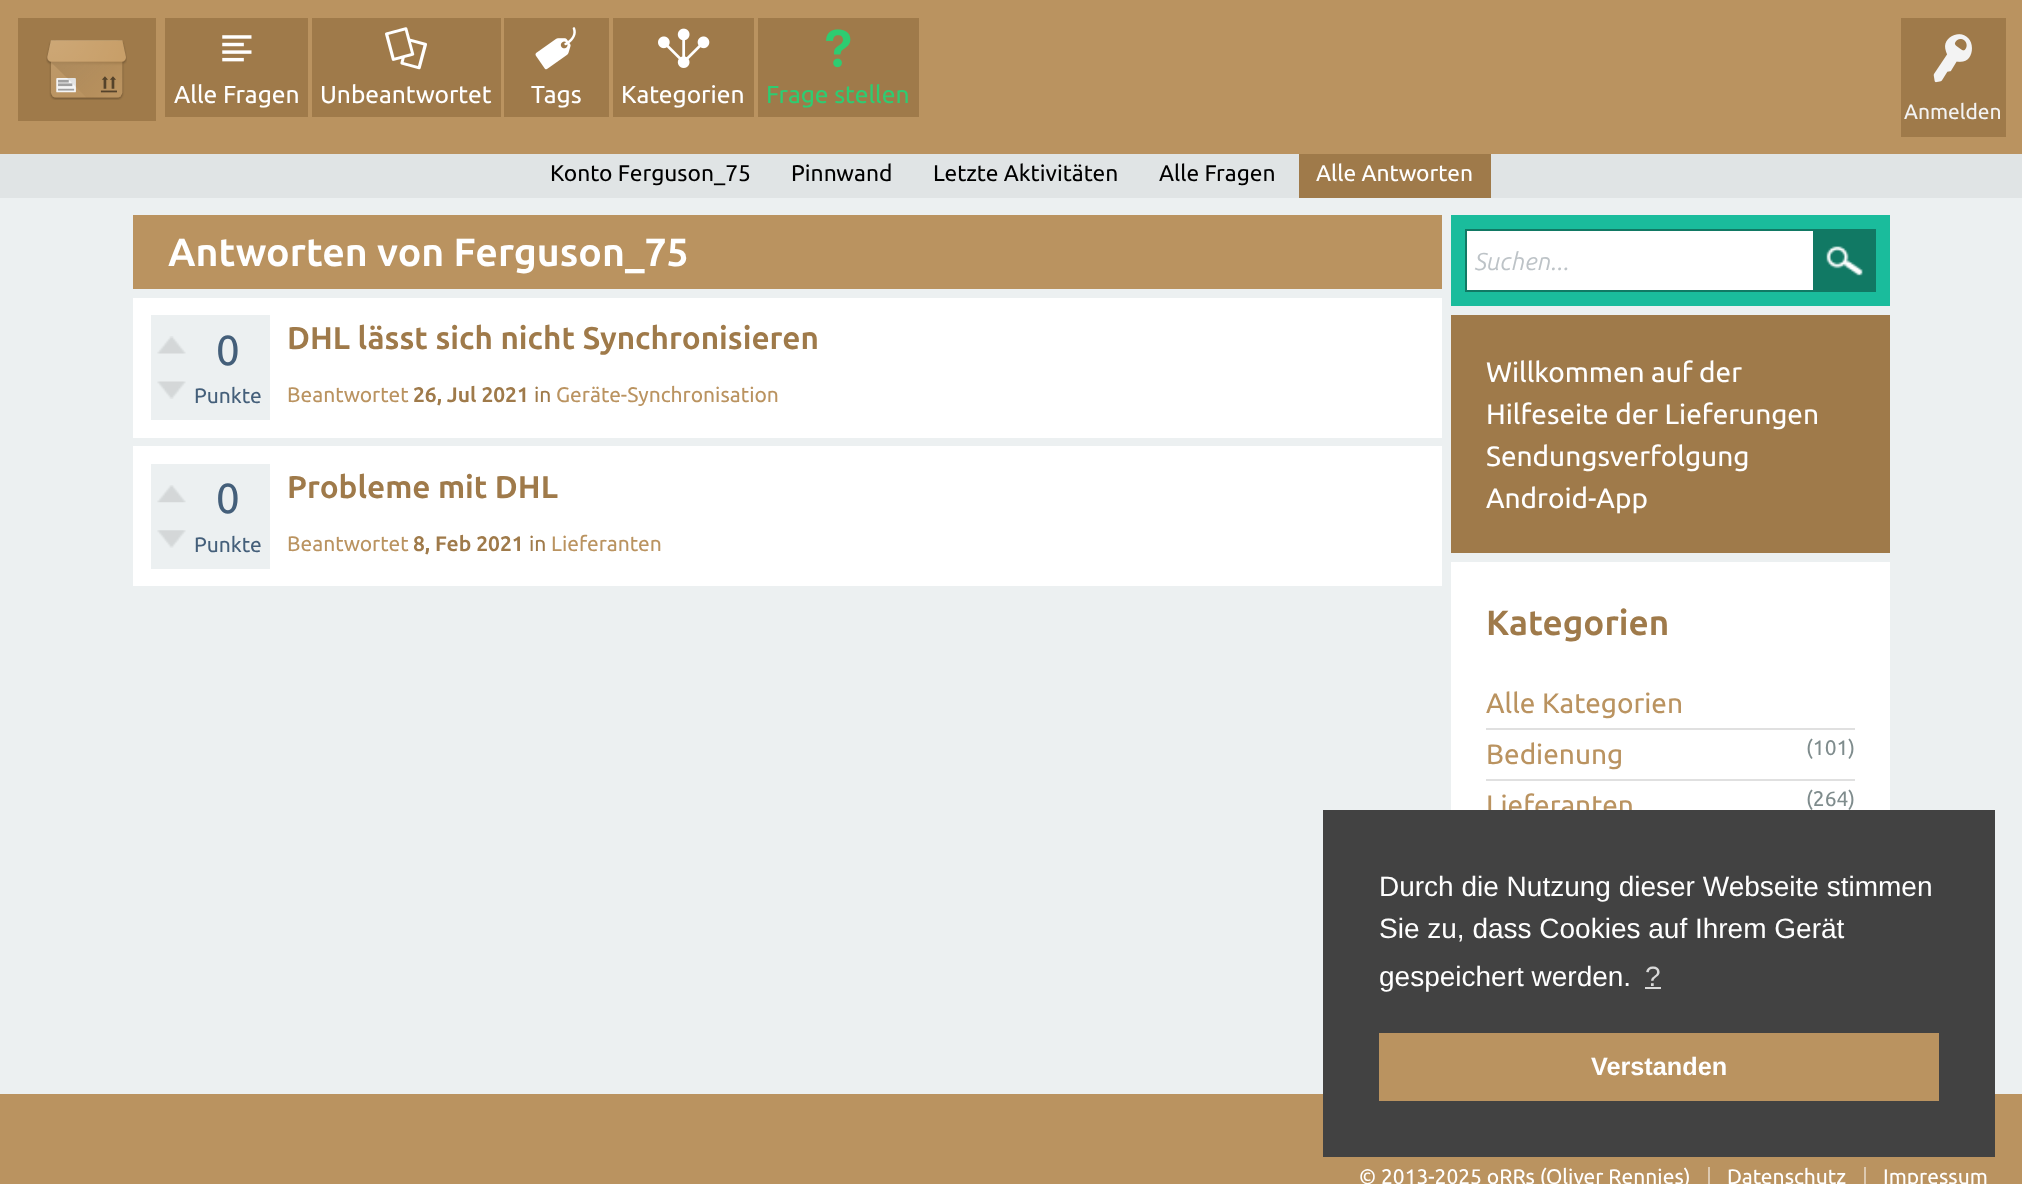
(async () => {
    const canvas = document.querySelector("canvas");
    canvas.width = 2022;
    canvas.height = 1184;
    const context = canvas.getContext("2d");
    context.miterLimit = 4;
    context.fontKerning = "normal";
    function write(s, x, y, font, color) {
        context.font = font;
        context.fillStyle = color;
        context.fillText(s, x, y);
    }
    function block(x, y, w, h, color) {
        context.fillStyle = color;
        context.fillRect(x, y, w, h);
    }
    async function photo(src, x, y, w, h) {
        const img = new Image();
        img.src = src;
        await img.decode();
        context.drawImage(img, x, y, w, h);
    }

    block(0, 0, 2022, 1184, "rgb(236, 240, 241)");
    block(0, 0, 2022, 154, "rgb(186, 147, 96)");
    block(18, 18, 138, 103, "rgb(159, 122, 74)");
    await photo("media/1.png", 46, 40, 81, 60);
    block(165, 18, 143, 99, "rgb(159, 122, 74)");
    await photo("media/2.png", 222, 35, 30, 27);
    write("Alle Fragen", 174, 103, "24.5px Ubuntu", "rgb(255, 255, 255)");
    block(312, 18, 189, 99, "rgb(159, 122, 74)");
    await photo("media/3.png", 385, 27, 42, 43);
    write("Unbeantwortet", 320, 103, "24.5px Ubuntu", "rgb(255, 255, 255)");
    block(504, 18, 105, 99, "rgb(159, 122, 74)");
    await photo("media/4.png", 535, 27, 41, 43);
    write("Tags", 531, 103, "24.5px Ubuntu", "rgb(255, 255, 255)");
    block(613, 18, 141, 99, "rgb(159, 122, 74)");
    await photo("media/5.png", 658, 28, 52, 40);
    write("Kategorien", 621, 103, "24.5px Ubuntu", "rgb(255, 255, 255)");
    block(758, 18, 161, 99, "rgb(159, 122, 74)");
    await photo("media/6.png", 826, 29, 25, 39);
    write("Frage stellen", 766, 103, "24.5px Ubuntu", "rgb(46, 204, 113)");
    block(1901, 18, 105, 119, "rgb(159, 122, 74)");
    await photo("media/7.png", 1933, 34, 39, 49);
    write("Anmelden", 1904, 119, "21px Ubuntu", "rgb(243, 243, 243)");
    block(0, 154, 2022, 44, "rgb(224, 228, 229)");
    write("Konto Ferguson_75", 550, 181, "22.75px Ubuntu", "rgb(0, 0, 0)");
    write("Pinnwand", 791, 181, "22.75px Ubuntu", "rgb(0, 0, 0)");
    write("Letzte Aktivitäten", 933, 181, "22.75px Ubuntu", "rgb(0, 0, 0)");
    write("Alle Fragen", 1159, 181, "22.75px Ubuntu", "rgb(0, 0, 0)");
    block(1299, 154, 192, 44, "rgb(159, 122, 74)");
    write("Alle Antworten", 1316, 181, "22.75px Ubuntu", "rgb(255, 255, 255)");
    block(133, 215, 1309, 74, "rgb(186, 147, 96)");
    write("Antworten von Ferguson_75", 168, 266, "bold 39.25px Ubuntu", "rgb(255, 255, 255)");
    block(133, 298, 1309, 140, "rgb(255, 255, 255)");
    block(151, 315, 119, 105, "rgb(236, 240, 241)");
    await photo("media/8.png", 157, 336, 29, 18);
    await photo("media/9.png", 157, 381, 29, 18);
    write("0", 216, 365, "42px Ubuntu", "rgb(68, 95, 122)");
    write("Punkte", 194, 403, "21px Ubuntu", "rgb(68, 95, 122)");
    write("DHL lässt sich nicht Synchronisieren", 287, 349, "bold 31.5px Ubuntu", "rgb(159, 122, 74)");
    write("Beantwortet", 287, 402, "21px Ubuntu", "rgb(186, 147, 96)");
    write("26, Jul 2021", 413, 402, "bold 21px Ubuntu", "rgb(159, 122, 74)");
    write("in", 534, 402, "21px Ubuntu", "rgb(159, 122, 74)");
    write("Geräte-Synchronisation", 556, 402, "21px Ubuntu", "rgb(186, 147, 96)");
    block(133, 446, 1309, 140, "rgb(255, 255, 255)");
    block(151, 464, 119, 105, "rgb(236, 240, 241)");
    await photo("media/10.png", 157, 485, 29, 18);
    await photo("media/11.png", 157, 530, 29, 18);
    write("0", 216, 513, "42px Ubuntu", "rgb(68, 95, 122)");
    write("Punkte", 194, 552, "21px Ubuntu", "rgb(68, 95, 122)");
    write("Probleme mit DHL", 287, 498, "bold 31.5px Ubuntu", "rgb(159, 122, 74)");
    write("Beantwortet", 287, 551, "21px Ubuntu", "rgb(186, 147, 96)");
    write("8, Feb 2021", 413, 551, "bold 21px Ubuntu", "rgb(159, 122, 74)");
    write("in", 529, 551, "21px Ubuntu", "rgb(159, 122, 74)");
    write("Lieferanten", 551, 551, "21px Ubuntu", "rgb(186, 147, 96)");
    block(1451, 215, 439, 91, "rgb(26, 188, 156)");
    block(1467, 231, 346, 59, "rgb(255, 255, 255)");
    context.strokeStyle = "rgb(17, 121, 100)";
    context.lineWidth = 2;
    context.strokeRect(1466, 230, 409, 61);
    write("Suchen...", 1475, 270, "italic 24.5px Ubuntu", "rgb(189, 195, 199)");
    block(1813, 231, 61, 59, "rgb(17, 121, 100)");
    await photo("media/12.png", 1826, 246, 37, 30);
    block(1451, 315, 439, 238, "rgb(159, 122, 74)");
    write("Willkommen auf der", 1486, 382, "28px Ubuntu", "rgb(255, 255, 255)");
    write("Hilfeseite der Lieferungen", 1486, 424, "28px Ubuntu", "rgb(255, 255, 255)");
    write("Sendungsverfolgung", 1486, 466, "28px Ubuntu", "rgb(255, 255, 255)");
    write("Android-App", 1486, 508, "28px Ubuntu", "rgb(255, 255, 255)");
    block(1451, 562, 439, 248, "rgb(255, 255, 255)");
    write("Kategorien", 1486, 635, "bold 35px Ubuntu", "rgb(159, 122, 74)");
    block(1486, 728, 369, 2, "rgb(224, 224, 224)");
    write("Alle Kategorien", 1486, 713, "28px Ubuntu", "rgb(186, 147, 96)");
    block(1486, 779, 369, 2, "rgb(224, 224, 224)");
    write("Bedienung", 1486, 764, "28px Ubuntu", "rgb(186, 147, 96)");
    write("(101)", 1806, 755, "21px Ubuntu", "rgb(127, 140, 141)");
    write("Lieferanten", 1486, 815, "28px Ubuntu", "rgb(186, 147, 96)");
    write("(264)", 1806, 806, "21px Ubuntu", "rgb(127, 140, 141)");
    block(0, 1094, 2022, 90, "rgb(186, 147, 96)");
    block(1323, 810, 672, 347, "rgb(66, 66, 66)");
    write("Durch die Nutzung dieser Webseite stimmen", 1379, 896, "28px Liberation Sans", "rgb(255, 255, 255)");
    write("Sie zu, dass Cookies auf Ihrem Gerät", 1379, 938, "28px Liberation Sans", "rgb(255, 255, 255)");
    write("gespeichert werden.", 1379, 986, "28px Liberation Sans", "rgb(255, 255, 255)");
    write("?", 1645, 986, "28px Liberation Sans", "rgb(217, 217, 217)");
    block(1645, 987, 16, 2, "rgb(217, 217, 217)");
    block(1379, 1033, 560, 68, "rgb(186, 147, 96)");
    write("Verstanden", 1591, 1075, "bold 25.25px Liberation Sans", "rgb(255, 255, 255)");
    block(1708, 1167, 2, 17, "rgb(221, 201, 176)");
    write("© 2013-2025 oRRs (Oliver Rennies)", 1359, 1184, "21px Ubuntu", "rgb(255, 255, 255)");
    block(1864, 1167, 2, 17, "rgb(221, 201, 176)");
    write("Datenschutz", 1727, 1184, "21px Ubuntu", "rgb(255, 255, 255)");
    write("Impressum", 1883, 1184, "21px Ubuntu", "rgb(255, 255, 255)");
})();
